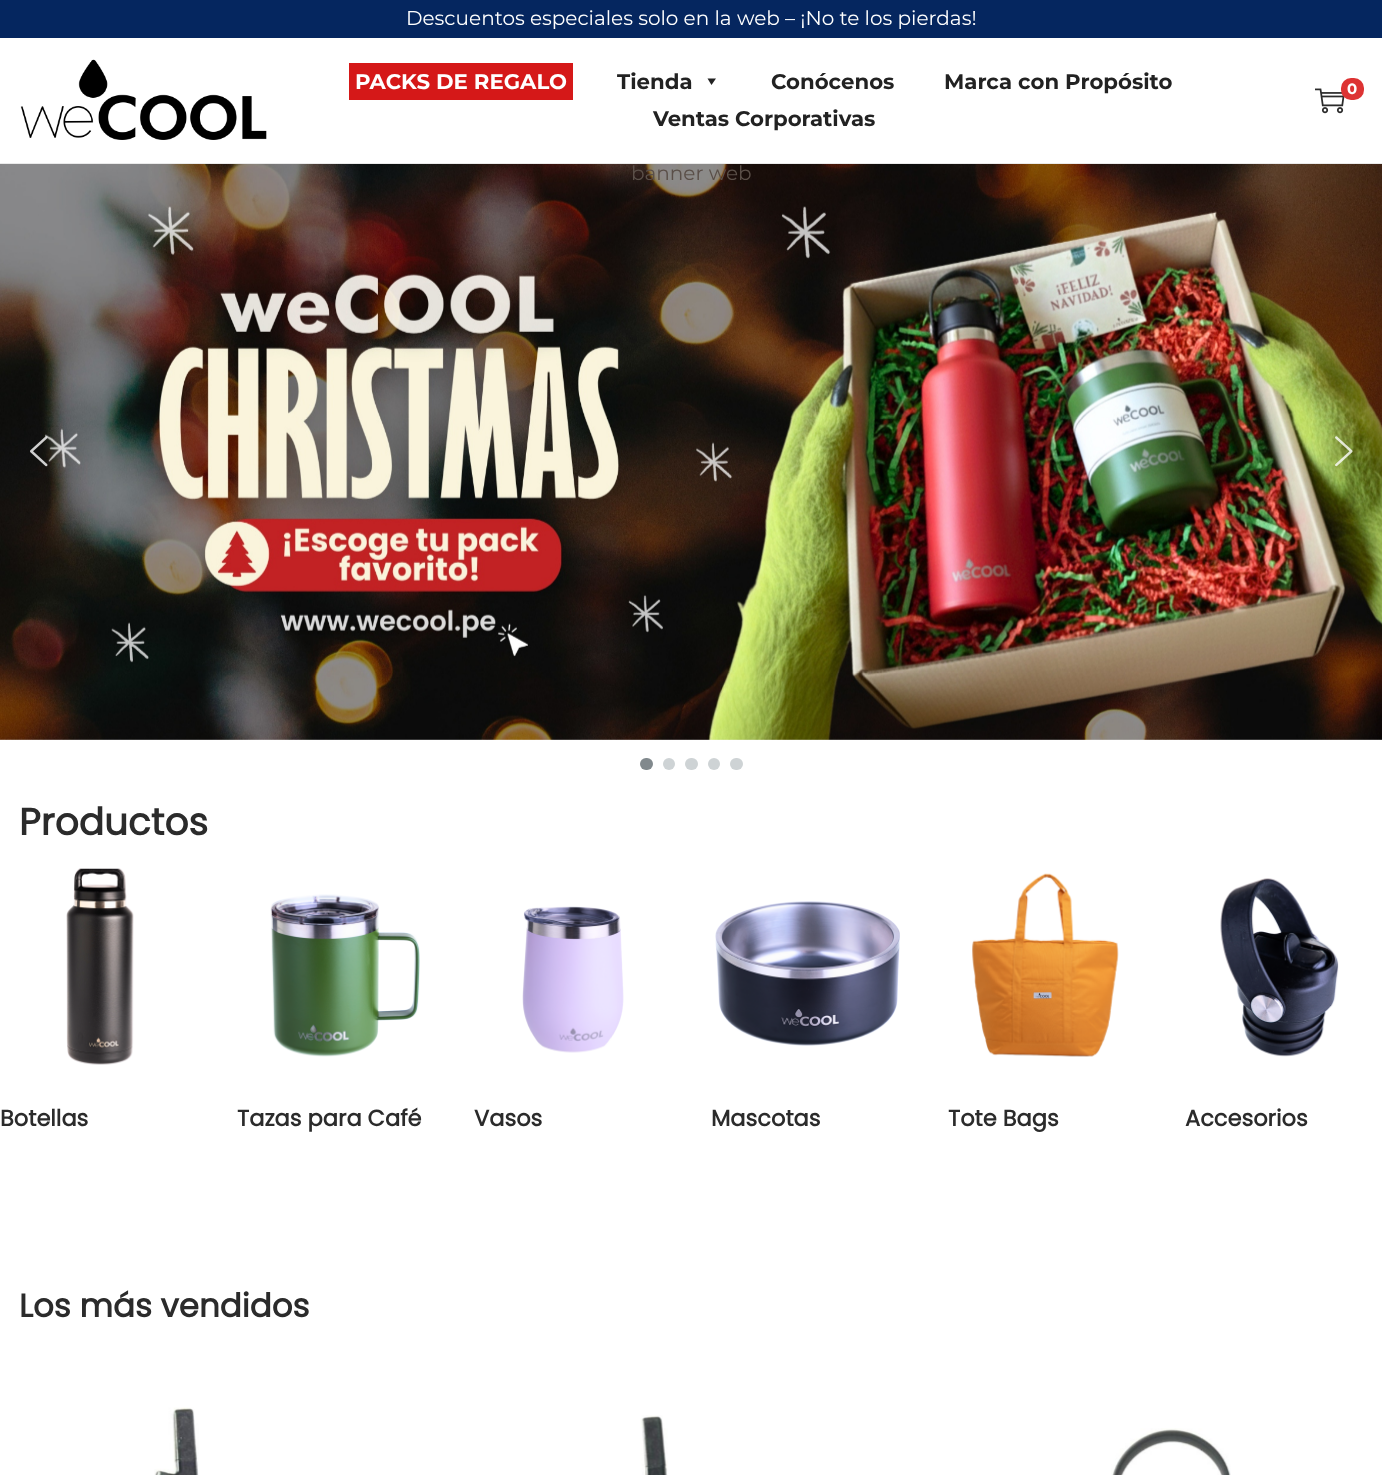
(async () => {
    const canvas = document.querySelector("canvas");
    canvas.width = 1382;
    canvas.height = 1475;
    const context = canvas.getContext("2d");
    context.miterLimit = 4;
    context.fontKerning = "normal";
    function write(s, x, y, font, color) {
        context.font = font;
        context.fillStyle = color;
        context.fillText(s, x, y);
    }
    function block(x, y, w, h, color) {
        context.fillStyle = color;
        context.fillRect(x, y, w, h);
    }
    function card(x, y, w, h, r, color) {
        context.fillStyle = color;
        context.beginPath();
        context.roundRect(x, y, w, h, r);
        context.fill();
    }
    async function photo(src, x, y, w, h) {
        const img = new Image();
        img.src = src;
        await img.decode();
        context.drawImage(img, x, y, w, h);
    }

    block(0, 0, 1382, 1475, "rgb(255, 255, 255)");
    block(0, 0, 1382, 38, "rgb(5, 38, 95)");
    write("Descuentos especiales solo en la web – ¡No te los pierdas!", 406, 25, "20px Montserrat", "rgb(255, 255, 255)");
    block(0, 163, 1382, 1, "rgb(234, 234, 234)");
    await photo("media/1.png", 20, 59, 247, 81);
    block(349, 63, 224, 37, "rgb(213, 24, 24)");
    write("PACKS DE REGALO", 355, 89, "bold 21.25px Montserrat", "rgb(255, 255, 255)");
    write("Tienda", 617, 89, "bold 21.25px Montserrat", "rgb(34, 34, 34)");
    context.beginPath();
    context.moveTo(716, 78.5);
    context.lineTo(711.5, 85);
    context.lineTo(707.5, 78.5);
    context.closePath();
    context.fill();
    write("Conócenos", 771, 89, "bold 21.25px Montserrat", "rgb(34, 34, 34)");
    write("Marca con Propósito", 944, 89, "bold 21.25px Montserrat", "rgb(34, 34, 34)");
    write("Ventas Corporativas", 653, 126, "bold 21.25px Montserrat", "rgb(34, 34, 34)");
    await photo("media/2.png", 1315, 88, 30, 26);
    card(1341, 78, 23, 22, 10, "rgb(221, 51, 51)");
    write("0", 1347, 94, "bold 15px Montserrat", "rgb(255, 255, 255)");
    await photo("media/3.png", 0, 164, 1382, 576);
    write("banner web", 631, 180, "20px Montserrat", "rgb(90, 79, 72)");
    await photo("media/4.png", 30, 436, 18, 31);
    await photo("media/5.png", 1335, 436, 18, 31);
    card(640, 758, 13, 12, 6, "rgb(129, 137, 141)");
    context.fillStyle = "rgb(206, 211, 213)";
    context.beginPath();
    context.arc(669, 764, 6, 0, Math.PI * 2);
    context.fill();
    card(685, 758, 13, 12, 6, "rgb(206, 211, 213)");
    context.beginPath();
    context.arc(714, 764, 6, 0, Math.PI * 2);
    context.fill();
    card(730, 758, 13, 12, 6, "rgb(206, 211, 213)");
    write("Productos", 19, 835, "bold 37.5px Poppins", "rgb(43, 43, 43)");
    await photo("media/6.png", 66, 868, 68, 197);
    write("Botellas", 0, 1126, "bold 22.5px Poppins", "rgb(43, 43, 43)");
    await photo("media/7.png", 270, 894, 150, 163);
    write("Tazas para Café", 237, 1126, "bold 22.5px Poppins", "rgb(43, 43, 43)");
    await photo("media/8.png", 522, 906, 102, 147);
    write("Vasos", 474, 1126, "bold 22.5px Poppins", "rgb(43, 43, 43)");
    await photo("media/9.png", 715, 901, 185, 145);
    write("Mascotas", 711, 1126, "bold 22.5px Poppins", "rgb(43, 43, 43)");
    await photo("media/10.png", 972, 873, 147, 184);
    write("Tote Bags", 948, 1126, "bold 22.5px Poppins", "rgb(43, 43, 43)");
    await photo("media/11.png", 1220, 878, 119, 179);
    write("Accesorios", 1185, 1126, "bold 22.5px Poppins", "rgb(43, 43, 43)");
    write("Los más vendidos", 19, 1317, "bold 32.5px Poppins", "rgb(43, 43, 43)");
    await photo("media/12.png", 154, 1407, 45, 68);
    await photo("media/13.png", 640, 1415, 28, 60);
    await photo("media/14.png", 1111, 1428, 120, 47);
})();
